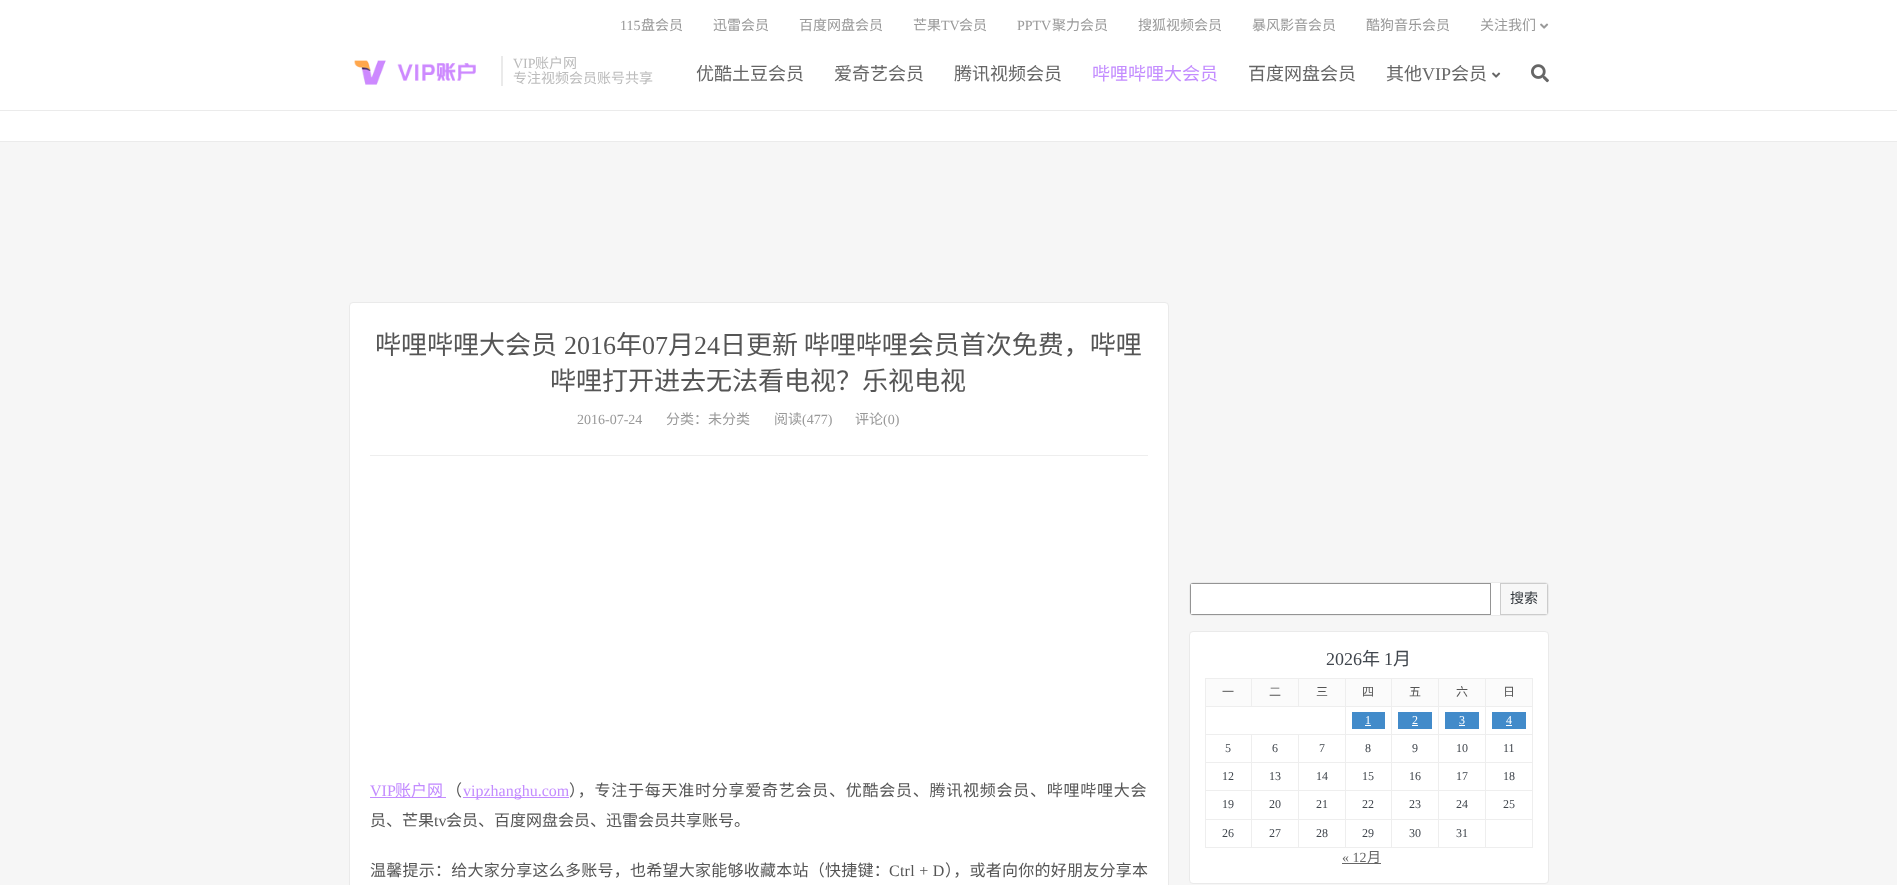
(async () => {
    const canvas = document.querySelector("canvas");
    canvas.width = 1897;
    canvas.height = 885;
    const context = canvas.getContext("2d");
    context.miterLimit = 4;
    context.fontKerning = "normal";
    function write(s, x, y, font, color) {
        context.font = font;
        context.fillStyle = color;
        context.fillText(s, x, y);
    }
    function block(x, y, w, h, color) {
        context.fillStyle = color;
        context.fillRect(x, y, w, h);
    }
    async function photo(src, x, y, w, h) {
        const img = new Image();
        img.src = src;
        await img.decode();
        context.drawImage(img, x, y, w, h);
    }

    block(0, 0, 1897, 885, "rgb(246, 246, 246)");
    block(0, 0, 1897, 110, "rgb(255, 255, 255)");
    block(0, 110, 1897, 1, "rgb(235, 235, 235)");
    write("115", 620, 30, "14px Liberation Serif", "rgb(153, 153, 153)");
    write("盘会员", 641, 30, "14px Noto Sans CJK SC", "rgb(153, 153, 153)");
    write("迅雷会员", 713, 30, "14px Noto Sans CJK SC", "rgb(153, 153, 153)");
    write("百度网盘会员", 799, 30, "14px Noto Sans CJK SC", "rgb(153, 153, 153)");
    write("芒果", 913, 30, "14px Noto Sans CJK SC", "rgb(153, 153, 153)");
    write("TV", 941, 30, "14px Liberation Serif", "rgb(153, 153, 153)");
    write("会员", 959, 30, "14px Noto Sans CJK SC", "rgb(153, 153, 153)");
    write("PPTV", 1017, 30, "14px Liberation Serif", "rgb(153, 153, 153)");
    write("聚力会员", 1052, 30, "14px Noto Sans CJK SC", "rgb(153, 153, 153)");
    write("搜狐视频会员", 1138, 30, "14px Noto Sans CJK SC", "rgb(153, 153, 153)");
    write("暴风影音会员", 1252, 30, "14px Noto Sans CJK SC", "rgb(153, 153, 153)");
    write("酷狗音乐会员", 1366, 30, "14px Noto Sans CJK SC", "rgb(153, 153, 153)");
    write("关注我们", 1480, 30, "14px Noto Sans CJK SC", "rgb(153, 153, 153)");
    await photo("media/1.png", 1540, 23, 9, 6);
    await photo("media/2.png", 354, 60, 122, 25);
    block(501, 56, 2, 30, "rgb(234, 234, 234)");
    write("VIP", 513, 68, "14px Liberation Serif", "rgb(187, 187, 187)");
    write("账户网", 535, 68, "14px Noto Sans CJK SC", "rgb(187, 187, 187)");
    write("专注视频会员账号共享", 513, 83, "14px Noto Sans CJK SC", "rgb(187, 187, 187)");
    write("优酷土豆会员", 696, 80, "18px Noto Sans CJK SC", "rgb(102, 102, 102)");
    write("爱奇艺会员", 834, 80, "18px Noto Sans CJK SC", "rgb(102, 102, 102)");
    write("腾讯视频会员", 954, 80, "18px Noto Sans CJK SC", "rgb(102, 102, 102)");
    write("哔哩哔哩大会员", 1092, 80, "18px Noto Sans CJK SC", "rgb(195, 140, 255)");
    write("百度网盘会员", 1248, 80, "18px Noto Sans CJK SC", "rgb(102, 102, 102)");
    write("其他", 1386, 80, "18px Noto Sans CJK SC", "rgb(102, 102, 102)");
    write("VIP", 1422, 80, "18px Liberation Serif", "rgb(102, 102, 102)");
    write("会员", 1451, 80, "18px Noto Sans CJK SC", "rgb(102, 102, 102)");
    await photo("media/3.png", 1492, 72, 9, 6);
    await photo("media/4.png", 1531, 64, 18, 19);
    block(0, 111, 1897, 30, "rgb(255, 255, 255)");
    block(0, 141, 1897, 1, "rgb(235, 235, 235)");
    context.fillStyle = "rgb(255, 255, 255)";
    context.beginPath();
    context.roundRect(349.5, 302.5, 819, 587, 3.5);
    context.fill();
    context.strokeStyle = "rgb(234, 234, 234)";
    context.stroke();
    block(370, 455, 778, 1, "rgb(238, 238, 238)");
    write("哔哩哔哩大会员", 375, 354, "26px Noto Sans CJK SC", "rgb(85, 85, 85)");
    write("2016", 564, 354, "26px Liberation Serif", "rgb(85, 85, 85)");
    write("年", 616, 354, "26px Noto Sans CJK SC", "rgb(85, 85, 85)");
    write("07", 642, 354, "26px Liberation Serif", "rgb(85, 85, 85)");
    write("月", 668, 354, "26px Noto Sans CJK SC", "rgb(85, 85, 85)");
    write("24", 694, 354, "26px Liberation Serif", "rgb(85, 85, 85)");
    write("日更新 哔哩哔哩会员首次免费，哔哩", 720, 354, "26px Noto Sans CJK SC", "rgb(85, 85, 85)");
    write("哔哩打开进去无法看电视？乐视电视", 550, 390, "26px Noto Sans CJK SC", "rgb(85, 85, 85)");
    write("2016-07-24", 577, 424, "14px Liberation Serif", "rgb(153, 153, 153)");
    write("分类：未分类", 666, 424, "14px Noto Sans CJK SC", "rgb(153, 153, 153)");
    write("阅读", 774, 424, "14px Noto Sans CJK SC", "rgb(153, 153, 153)");
    write("(477)", 802, 424, "14px Liberation Serif", "rgb(153, 153, 153)");
    write("评论", 855, 424, "14px Noto Sans CJK SC", "rgb(153, 153, 153)");
    write("(0)", 883, 424, "14px Liberation Serif", "rgb(153, 153, 153)");
    write("VIP", 370, 796, "16px Liberation Serif", "rgb(195, 140, 255)");
    block(370, 797, 76, 1, "rgb(195, 140, 255)");
    write("账户网", 395, 796, "16px Noto Sans CJK SC", "rgb(195, 140, 255)");
    write("（", 446, 796, "16px Noto Sans CJK SC", "rgb(85, 85, 85)");
    block(463, 797, 106, 1, "rgb(195, 140, 255)");
    write("vipzhanghu.com", 463, 796, "16px Liberation Serif", "rgb(195, 140, 255)");
    context.letterSpacing = "0.75px";
    write("），专注于每天准时分享爱奇艺会员、优酷会员、腾讯视频会员、哔哩哔哩大会", 569, 796, "16px Noto Sans CJK SC", "rgb(85, 85, 85)");
    context.letterSpacing = "0px";
    write("员、芒果", 370, 826, "16px Noto Sans CJK SC", "rgb(85, 85, 85)");
    write("tv", 434, 826, "16px Liberation Serif", "rgb(85, 85, 85)");
    write("会员、百度网盘会员、迅雷会员共享账号。", 446, 826, "16px Noto Sans CJK SC", "rgb(85, 85, 85)");
    context.letterSpacing = "0.25px";
    write("温馨提示：给大家分享这么多账号，也希望大家能够收藏本站（快捷键：", 370, 876, "16px Noto Sans CJK SC", "rgb(85, 85, 85)");
    write("Ctrl + D", 889, 876, "16px Liberation Serif", "rgb(85, 85, 85)");
    write("），或者向你的好朋友分享本", 945, 876, "16px Noto Sans CJK SC", "rgb(85, 85, 85)");
    context.fillStyle = "rgb(255, 255, 255)";
    context.beginPath();
    context.roundRect(1189.5, 582.5, 359, 33, 3.5);
    context.fill();
    context.stroke();
    context.beginPath();
    context.roundRect(1190, 583, 301, 32, [3, 0, 0, 3]);
    context.fill();
    context.fillStyle = "rgb(148, 148, 148)";
    context.beginPath();
    context.moveTo(1193, 583);
    context.bezierCurveTo(1191, 583, 1190, 584, 1190, 586);
    context.lineTo(1190, 612);
    context.bezierCurveTo(1190, 614, 1191, 615, 1193, 615);
    context.lineTo(1491, 615);
    context.lineTo(1491, 583);
    context.closePath();
    context.moveTo(1191, 584);
    context.lineTo(1191, 614);
    context.lineTo(1490, 614);
    context.lineTo(1490, 584);
    context.closePath();
    context.fill("evenodd");
    context.fillStyle = "rgb(247, 247, 247)";
    context.beginPath();
    context.roundRect(1500, 583, 48, 32, [0, 3, 3, 0]);
    context.fill();
    context.fillStyle = "rgb(204, 204, 204)";
    context.beginPath();
    context.moveTo(1500, 583);
    context.lineTo(1500, 615);
    context.lineTo(1545, 615);
    context.bezierCurveTo(1547, 615, 1548, 614, 1548, 612);
    context.lineTo(1548, 586);
    context.bezierCurveTo(1548, 584, 1547, 583, 1545, 583);
    context.closePath();
    context.moveTo(1501, 584);
    context.lineTo(1501, 614);
    context.lineTo(1547, 614);
    context.lineTo(1547, 584);
    context.closePath();
    context.fill("evenodd");
    context.letterSpacing = "0px";
    write("搜索", 1510, 603, "14px Noto Sans CJK SC", "rgb(50, 55, 60)");
    context.fillStyle = "rgb(255, 255, 255)";
    context.beginPath();
    context.roundRect(1189.5, 631.5, 359, 252, 3.5);
    context.fill();
    context.stroke();
    write("2026", 1326, 665, "18px Liberation Serif", "rgb(64, 70, 77)");
    write("年", 1362, 665, "18px Noto Sans CJK SC", "rgb(64, 70, 77)");
    write("1", 1384, 665, "18px Liberation Serif", "rgb(64, 70, 77)");
    write("月", 1393, 665, "18px Noto Sans CJK SC", "rgb(64, 70, 77)");
    block(1206, 679, 45, 27, "rgb(251, 251, 251)");
    block(1485, 678, 48, 1, "rgb(238, 238, 238)");
    block(1485, 706, 48, 1, "rgb(238, 238, 238)");
    block(1485, 734, 48, 1, "rgb(238, 238, 238)");
    block(1485, 762, 48, 1, "rgb(238, 238, 238)");
    block(1485, 790, 48, 1, "rgb(238, 238, 238)");
    block(1485, 819, 48, 1, "rgb(238, 238, 238)");
    block(1532, 819, 1, 29, "rgb(238, 238, 238)");
    block(1485, 847, 48, 1, "rgb(238, 238, 238)");
    block(1485, 819, 1, 29, "rgb(238, 238, 238)");
    block(1438, 819, 48, 1, "rgb(238, 238, 238)");
    block(1485, 790, 1, 30, "rgb(238, 238, 238)");
    block(1438, 790, 48, 1, "rgb(238, 238, 238)");
    block(1485, 762, 1, 29, "rgb(238, 238, 238)");
    block(1438, 762, 48, 1, "rgb(238, 238, 238)");
    block(1485, 734, 1, 29, "rgb(238, 238, 238)");
    block(1438, 734, 48, 1, "rgb(238, 238, 238)");
    block(1485, 706, 1, 29, "rgb(238, 238, 238)");
    block(1438, 706, 48, 1, "rgb(238, 238, 238)");
    block(1485, 678, 1, 29, "rgb(238, 238, 238)");
    block(1438, 678, 48, 1, "rgb(238, 238, 238)");
    block(1438, 847, 48, 1, "rgb(238, 238, 238)");
    block(1438, 819, 1, 29, "rgb(238, 238, 238)");
    block(1391, 819, 48, 1, "rgb(238, 238, 238)");
    block(1438, 790, 1, 30, "rgb(238, 238, 238)");
    block(1391, 790, 48, 1, "rgb(238, 238, 238)");
    block(1438, 762, 1, 29, "rgb(238, 238, 238)");
    block(1391, 762, 48, 1, "rgb(238, 238, 238)");
    block(1438, 734, 1, 29, "rgb(238, 238, 238)");
    block(1391, 734, 48, 1, "rgb(238, 238, 238)");
    block(1438, 706, 1, 29, "rgb(238, 238, 238)");
    block(1391, 706, 48, 1, "rgb(238, 238, 238)");
    block(1438, 678, 1, 29, "rgb(238, 238, 238)");
    block(1391, 678, 48, 1, "rgb(238, 238, 238)");
    block(1391, 847, 48, 1, "rgb(238, 238, 238)");
    block(1391, 819, 1, 29, "rgb(238, 238, 238)");
    block(1345, 819, 47, 1, "rgb(238, 238, 238)");
    block(1391, 790, 1, 30, "rgb(238, 238, 238)");
    block(1345, 790, 47, 1, "rgb(238, 238, 238)");
    block(1391, 762, 1, 29, "rgb(238, 238, 238)");
    block(1345, 762, 47, 1, "rgb(238, 238, 238)");
    block(1391, 734, 1, 29, "rgb(238, 238, 238)");
    block(1345, 734, 47, 1, "rgb(238, 238, 238)");
    block(1391, 706, 1, 29, "rgb(238, 238, 238)");
    block(1345, 706, 47, 1, "rgb(238, 238, 238)");
    block(1391, 678, 1, 29, "rgb(238, 238, 238)");
    block(1345, 678, 47, 1, "rgb(238, 238, 238)");
    block(1345, 847, 47, 1, "rgb(238, 238, 238)");
    block(1345, 819, 1, 29, "rgb(238, 238, 238)");
    block(1298, 819, 48, 1, "rgb(238, 238, 238)");
    block(1345, 790, 1, 30, "rgb(238, 238, 238)");
    block(1298, 790, 48, 1, "rgb(238, 238, 238)");
    block(1345, 762, 1, 29, "rgb(238, 238, 238)");
    block(1298, 762, 48, 1, "rgb(238, 238, 238)");
    block(1345, 734, 1, 29, "rgb(238, 238, 238)");
    block(1298, 734, 48, 1, "rgb(238, 238, 238)");
    block(1345, 706, 1, 29, "rgb(238, 238, 238)");
    block(1205, 706, 141, 1, "rgb(238, 238, 238)");
    block(1345, 678, 1, 29, "rgb(238, 238, 238)");
    block(1298, 678, 48, 1, "rgb(238, 238, 238)");
    block(1298, 678, 1, 29, "rgb(238, 238, 238)");
    block(1251, 678, 48, 1, "rgb(238, 238, 238)");
    block(1251, 678, 1, 29, "rgb(238, 238, 238)");
    block(1205, 678, 47, 1, "rgb(238, 238, 238)");
    block(1298, 847, 48, 1, "rgb(238, 238, 238)");
    block(1298, 819, 1, 29, "rgb(238, 238, 238)");
    block(1251, 819, 48, 1, "rgb(238, 238, 238)");
    block(1298, 790, 1, 30, "rgb(238, 238, 238)");
    block(1251, 790, 48, 1, "rgb(238, 238, 238)");
    block(1298, 762, 1, 29, "rgb(238, 238, 238)");
    block(1251, 762, 48, 1, "rgb(238, 238, 238)");
    block(1298, 734, 1, 29, "rgb(238, 238, 238)");
    block(1251, 734, 48, 1, "rgb(238, 238, 238)");
    block(1251, 847, 48, 1, "rgb(238, 238, 238)");
    block(1251, 819, 1, 29, "rgb(238, 238, 238)");
    block(1205, 819, 47, 1, "rgb(238, 238, 238)");
    block(1251, 790, 1, 30, "rgb(238, 238, 238)");
    block(1205, 790, 47, 1, "rgb(238, 238, 238)");
    block(1251, 762, 1, 29, "rgb(238, 238, 238)");
    block(1205, 762, 47, 1, "rgb(238, 238, 238)");
    block(1251, 734, 1, 29, "rgb(238, 238, 238)");
    block(1205, 734, 47, 1, "rgb(238, 238, 238)");
    block(1205, 847, 47, 1, "rgb(238, 238, 238)");
    block(1205, 819, 1, 29, "rgb(238, 238, 238)");
    block(1205, 790, 1, 30, "rgb(238, 238, 238)");
    block(1205, 762, 1, 29, "rgb(238, 238, 238)");
    block(1205, 734, 1, 29, "rgb(238, 238, 238)");
    block(1205, 706, 1, 29, "rgb(238, 238, 238)");
    block(1205, 678, 1, 29, "rgb(238, 238, 238)");
    write("一", 1222, 696, "12px Noto Sans CJK SC", "rgb(85, 85, 85)");
    block(1252, 679, 46, 27, "rgb(251, 251, 251)");
    write("二", 1269, 696, "12px Noto Sans CJK SC", "rgb(85, 85, 85)");
    block(1299, 679, 46, 27, "rgb(251, 251, 251)");
    write("三", 1316, 696, "12px Noto Sans CJK SC", "rgb(85, 85, 85)");
    block(1346, 679, 45, 27, "rgb(251, 251, 251)");
    write("四", 1362, 696, "12px Noto Sans CJK SC", "rgb(85, 85, 85)");
    block(1392, 679, 46, 27, "rgb(251, 251, 251)");
    write("五", 1409, 696, "12px Noto Sans CJK SC", "rgb(85, 85, 85)");
    block(1439, 679, 46, 27, "rgb(251, 251, 251)");
    write("六", 1456, 696, "12px Noto Sans CJK SC", "rgb(85, 85, 85)");
    block(1486, 679, 46, 27, "rgb(251, 251, 251)");
    block(1532, 790, 1, 30, "rgb(238, 238, 238)");
    block(1532, 762, 1, 29, "rgb(238, 238, 238)");
    block(1532, 734, 1, 29, "rgb(238, 238, 238)");
    block(1532, 706, 1, 29, "rgb(238, 238, 238)");
    block(1532, 678, 1, 29, "rgb(238, 238, 238)");
    write("日", 1503, 696, "12px Noto Sans CJK SC", "rgb(85, 85, 85)");
    block(1352, 712, 33, 17, "rgb(66, 139, 202)");
    write("1", 1365, 724, "12px Liberation Serif", "rgb(255, 255, 255)");
    block(1365, 725, 6, 1, "rgb(255, 255, 255)");
    block(1398, 712, 34, 17, "rgb(66, 139, 202)");
    write("2", 1412, 724, "12px Liberation Serif", "rgb(255, 255, 255)");
    block(1412, 725, 6, 1, "rgb(255, 255, 255)");
    block(1445, 712, 34, 17, "rgb(66, 139, 202)");
    write("3", 1459, 724, "12px Liberation Serif", "rgb(255, 255, 255)");
    block(1459, 725, 6, 1, "rgb(255, 255, 255)");
    block(1492, 712, 34, 17, "rgb(66, 139, 202)");
    write("4", 1506, 724, "12px Liberation Serif", "rgb(255, 255, 255)");
    block(1506, 725, 6, 1, "rgb(255, 255, 255)");
    write("5", 1225, 752, "12px Liberation Serif", "rgb(64, 70, 77)");
    write("6", 1272, 752, "12px Liberation Serif", "rgb(64, 70, 77)");
    write("7", 1319, 752, "12px Liberation Serif", "rgb(64, 70, 77)");
    write("8", 1365, 752, "12px Liberation Serif", "rgb(64, 70, 77)");
    write("9", 1412, 752, "12px Liberation Serif", "rgb(64, 70, 77)");
    write("10", 1456, 752, "12px Liberation Serif", "rgb(64, 70, 77)");
    write("11", 1503, 752, "12px Liberation Serif", "rgb(64, 70, 77)");
    write("12", 1222, 780, "12px Liberation Serif", "rgb(64, 70, 77)");
    write("13", 1269, 780, "12px Liberation Serif", "rgb(64, 70, 77)");
    write("14", 1316, 780, "12px Liberation Serif", "rgb(64, 70, 77)");
    write("15", 1362, 780, "12px Liberation Serif", "rgb(64, 70, 77)");
    write("16", 1409, 780, "12px Liberation Serif", "rgb(64, 70, 77)");
    write("17", 1456, 780, "12px Liberation Serif", "rgb(64, 70, 77)");
    write("18", 1503, 780, "12px Liberation Serif", "rgb(64, 70, 77)");
    write("19", 1222, 808, "12px Liberation Serif", "rgb(64, 70, 77)");
    write("20", 1269, 808, "12px Liberation Serif", "rgb(64, 70, 77)");
    write("21", 1316, 808, "12px Liberation Serif", "rgb(64, 70, 77)");
    write("22", 1362, 808, "12px Liberation Serif", "rgb(64, 70, 77)");
    write("23", 1409, 808, "12px Liberation Serif", "rgb(64, 70, 77)");
    write("24", 1456, 808, "12px Liberation Serif", "rgb(64, 70, 77)");
    write("25", 1503, 808, "12px Liberation Serif", "rgb(64, 70, 77)");
    write("26", 1222, 837, "12px Liberation Serif", "rgb(64, 70, 77)");
    write("27", 1269, 837, "12px Liberation Serif", "rgb(64, 70, 77)");
    write("28", 1316, 837, "12px Liberation Serif", "rgb(64, 70, 77)");
    write("29", 1362, 837, "12px Liberation Serif", "rgb(64, 70, 77)");
    write("30", 1409, 837, "12px Liberation Serif", "rgb(64, 70, 77)");
    write("31", 1456, 837, "12px Liberation Serif", "rgb(64, 70, 77)");
    write("« 12", 1342, 862, "14px Liberation Serif", "rgb(102, 102, 102)");
    block(1342, 863, 39, 1, "rgb(102, 102, 102)");
    write("月", 1367, 862, "14px Noto Sans CJK SC", "rgb(102, 102, 102)");
})();
